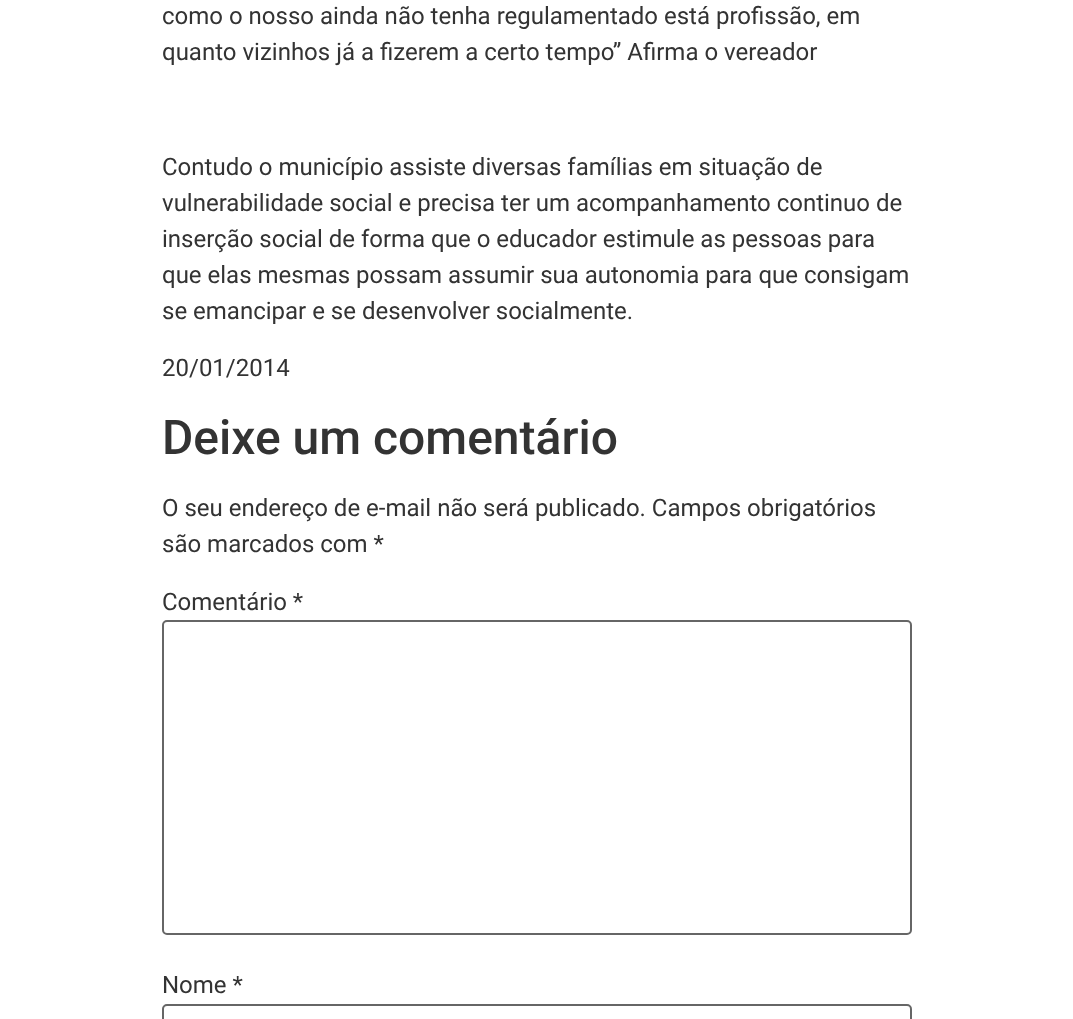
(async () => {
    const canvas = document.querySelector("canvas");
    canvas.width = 1073;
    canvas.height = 1019;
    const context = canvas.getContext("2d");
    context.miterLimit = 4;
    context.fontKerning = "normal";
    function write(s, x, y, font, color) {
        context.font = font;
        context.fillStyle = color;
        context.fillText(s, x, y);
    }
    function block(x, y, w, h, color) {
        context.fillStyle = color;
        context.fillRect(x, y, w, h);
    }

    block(0, 0, 1073, 1019, "rgb(255, 255, 255)");
    write("como o nosso ainda não tenha regulamentado está profissão, em", 162, 24, "24px Roboto", "rgb(51, 51, 51)");
    write("quanto vizinhos já a fizerem a certo tempo” Afirma o vereador", 162, 60, "24px Roboto", "rgb(51, 51, 51)");
    write("Contudo o município assiste diversas famílias em situação de", 162, 175, "24px Roboto", "rgb(51, 51, 51)");
    write("vulnerabilidade social e precisa ter um acompanhamento continuo de", 162, 211, "24px Roboto", "rgb(51, 51, 51)");
    write("inserção social de forma que o educador estimule as pessoas para", 162, 247, "24px Roboto", "rgb(51, 51, 51)");
    write("que elas mesmas possam assumir sua autonomia para que consigam", 162, 283, "24px Roboto", "rgb(51, 51, 51)");
    write("se emancipar e se desenvolver socialmente.", 162, 319, "24px Roboto", "rgb(51, 51, 51)");
    write("20/01/2014", 162, 376, "24px Roboto", "rgb(51, 51, 51)");
    write("Deixe um comentário", 162, 454, "500 48px Roboto", "rgb(51, 51, 51)");
    write("O seu endereço de e-mail não será publicado. Campos obrigatórios", 162, 516, "24px Roboto", "rgb(51, 51, 51)");
    write("são marcados com *", 162, 552, "24px Roboto", "rgb(51, 51, 51)");
    write("Comentário *", 162, 610, "24px Roboto", "rgb(51, 51, 51)");
    context.beginPath();
    context.roundRect(163, 621, 748, 313, 4);
    context.strokeStyle = "rgb(102, 102, 102)";
    context.lineWidth = 2;
    context.stroke();
    write("Nome *", 162, 993, "24px Roboto", "rgb(51, 51, 51)");
    context.beginPath();
    context.roundRect(163, 1005, 748, 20, 4);
    context.stroke();
})();
